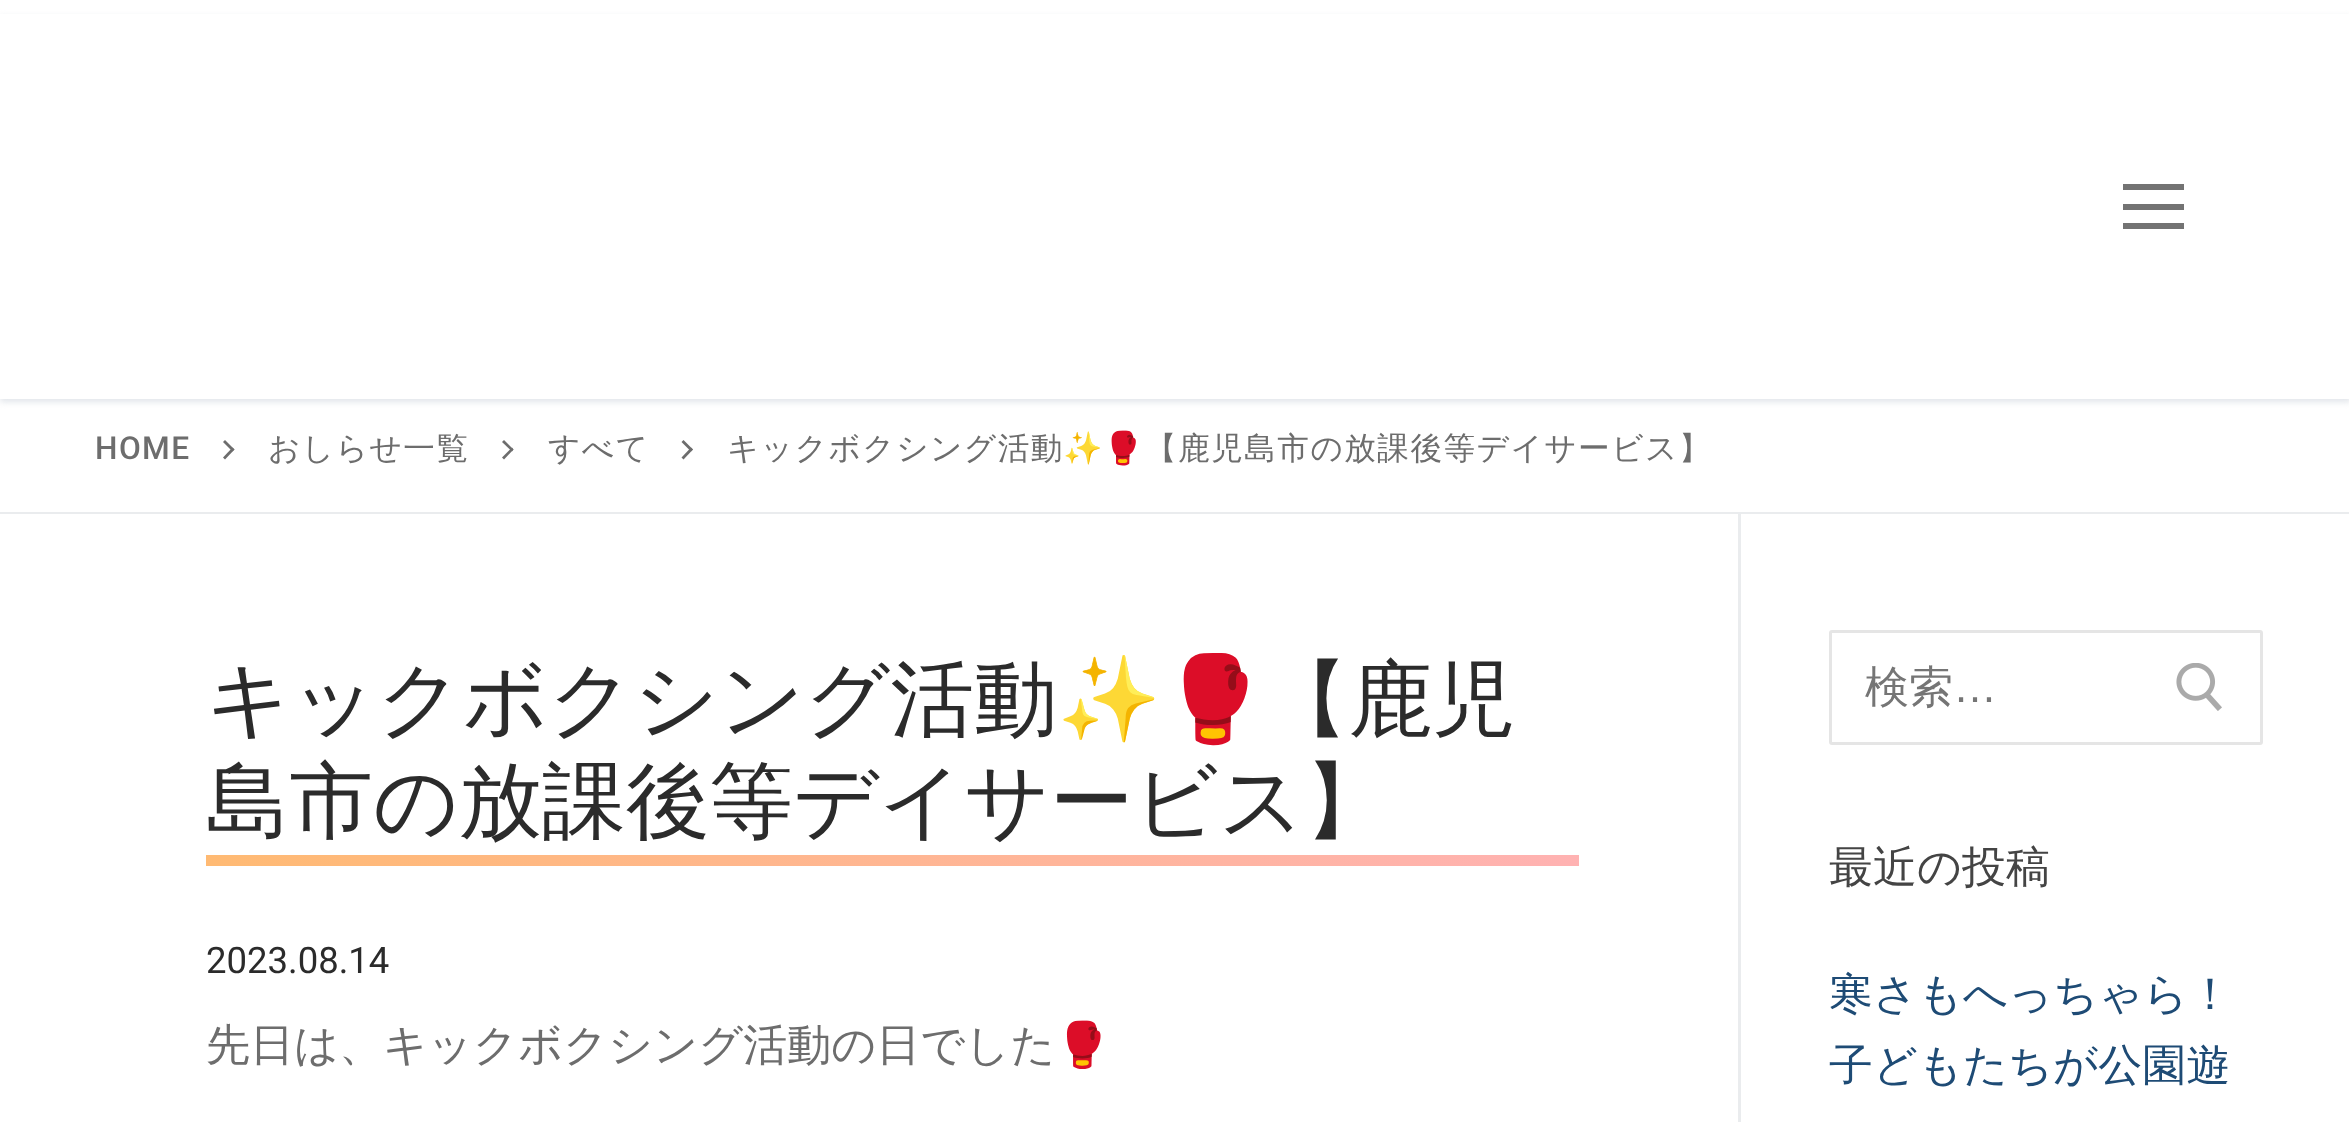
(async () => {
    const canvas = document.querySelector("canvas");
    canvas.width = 2349;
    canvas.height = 1122;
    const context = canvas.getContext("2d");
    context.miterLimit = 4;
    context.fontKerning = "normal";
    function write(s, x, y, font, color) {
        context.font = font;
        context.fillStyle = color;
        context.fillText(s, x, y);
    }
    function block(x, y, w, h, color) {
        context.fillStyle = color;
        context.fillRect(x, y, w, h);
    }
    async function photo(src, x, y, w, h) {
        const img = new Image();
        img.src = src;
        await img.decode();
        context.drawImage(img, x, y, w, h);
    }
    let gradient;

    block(0, 0, 2349, 1122, "rgb(255, 255, 255)");
    context.fillStyle = "rgb(225, 229, 234)";
    context.filter = "blur(3px)";
    context.beginPath();
    context.rect(0, 17, 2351, 385);
    context.fill();
    context.filter = "none";
    block(0, 14, 2349, 385, "rgb(255, 255, 255)");
    block(2123, 204, 61, 6, "rgb(115, 115, 115)");
    block(2123, 184, 61, 6, "rgb(115, 115, 115)");
    block(2123, 223, 61, 6, "rgb(115, 115, 115)");
    block(0, 512, 2349, 2, "rgb(234, 236, 238)");
    context.letterSpacing = "1.4px";
    write("HOME", 95, 459, "500 31.7px Roboto", "rgb(109, 109, 109)");
    context.beginPath();
    context.moveTo(234.5, 449.5);
    context.lineTo(225, 459.5);
    context.lineTo(223, 457.5);
    context.lineTo(232.5, 447.5);
    context.closePath();
    context.fill();
    context.beginPath();
    context.moveTo(234.5, 449.5);
    context.lineTo(232.5, 451.5);
    context.lineTo(223, 442);
    context.lineTo(225, 440);
    context.closePath();
    context.fill();
    write("おしらせ一覧", 268, 459, "500 31.7px WenQuanYi Zen Hei", "rgb(109, 109, 109)");
    context.beginPath();
    context.moveTo(513.5, 449.5);
    context.lineTo(504, 459.5);
    context.lineTo(502, 457.5);
    context.lineTo(512, 447.5);
    context.closePath();
    context.fill();
    context.beginPath();
    context.moveTo(513.5, 449.5);
    context.lineTo(512, 451.5);
    context.lineTo(502, 442);
    context.lineTo(504, 440);
    context.closePath();
    context.fill();
    write("すべて", 548, 459, "500 31.7px WenQuanYi Zen Hei", "rgb(109, 109, 109)");
    context.beginPath();
    context.moveTo(693, 449.5);
    context.lineTo(683.5, 459.5);
    context.lineTo(681.5, 457.5);
    context.lineTo(691, 447.5);
    context.closePath();
    context.fill();
    context.beginPath();
    context.moveTo(693, 449.5);
    context.lineTo(691, 451.5);
    context.lineTo(681.5, 442);
    context.lineTo(683.5, 440);
    context.closePath();
    context.fill();
    write("キックボクシング活動", 727, 459, "500 31.7px WenQuanYi Zen Hei", "rgb(109, 109, 109)");
    write("✨🥊", 1063, 459, "31.7px Noto Color Emoji", "rgb(109, 109, 109)");
    write("【鹿児島市の放課後等デイサービス】", 1145, 459, "500 31.7px WenQuanYi Zen Hei", "rgb(109, 109, 109)");
    block(1738, 514, 3, 608, "rgb(234, 236, 238)");
    context.letterSpacing = "0px";
    write("キックボクシング活動", 206, 728, "500 83.6px WenQuanYi Zen Hei", "rgb(43, 43, 43)");
    write("✨🥊", 1057, 728, "83.6px Noto Color Emoji", "rgb(43, 43, 43)");
    write("【鹿児", 1265, 728, "500 83.6px WenQuanYi Zen Hei", "rgb(43, 43, 43)");
    write("島市の放課後等デイサービス】", 206, 830, "500 83.6px WenQuanYi Zen Hei", "rgb(43, 43, 43)");
    gradient = context.createLinearGradient(206, 861, 1579, 861);
    gradient.addColorStop(0, "rgb(255, 186, 115)");
    gradient.addColorStop(1, "rgb(255, 178, 178)");
    context.fillStyle = gradient;
    context.fillRect(206, 855, 1373, 11);
    write("2023.08.14", 206, 973, "36.5px Roboto", "rgb(43, 43, 43)");
    write("先日は、キックボクシング活動の日でした", 206, 1060, "500 44px WenQuanYi Zen Hei", "rgb(109, 109, 109)");
    write("🥊", 1055, 1060, "44px Noto Color Emoji", "rgb(109, 109, 109)");
    context.beginPath();
    context.roundRect(1830.5, 631.5, 431, 112, 1.5);
    context.strokeStyle = "rgb(229, 229, 229)";
    context.lineWidth = 3;
    context.stroke();
    write("検索", 1865, 702, "500 44px WenQuanYi Zen Hei", "rgb(117, 117, 117)");
    write("…", 1953, 702, "44px Liberation Sans", "rgb(117, 117, 117)");
    await photo("media/1.png", 2176, 663, 46, 48);
    write("最近の投稿", 1829, 882, "500 44px WenQuanYi Zen Hei", "rgb(68, 68, 68)");
    write("寒さもへっちゃら！", 1829, 1009, "500 44px WenQuanYi Zen Hei", "rgb(30, 75, 117)");
    write("子どもたちが公園遊", 1829, 1080, "500 44px WenQuanYi Zen Hei", "rgb(30, 75, 117)");
})();
